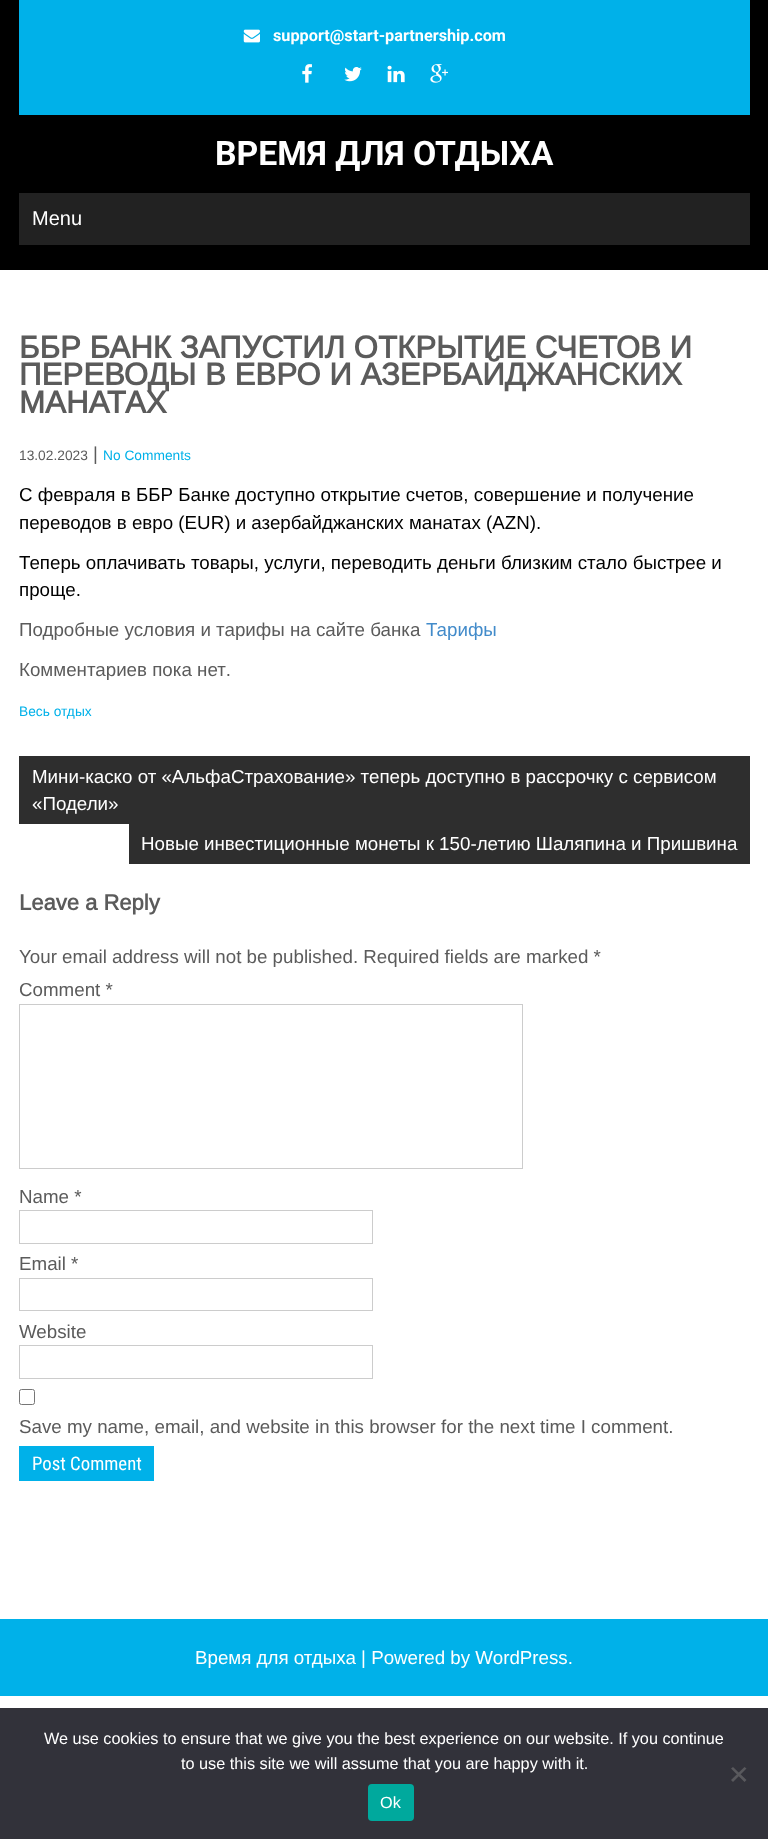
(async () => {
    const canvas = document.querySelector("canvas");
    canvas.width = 768;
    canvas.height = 1839;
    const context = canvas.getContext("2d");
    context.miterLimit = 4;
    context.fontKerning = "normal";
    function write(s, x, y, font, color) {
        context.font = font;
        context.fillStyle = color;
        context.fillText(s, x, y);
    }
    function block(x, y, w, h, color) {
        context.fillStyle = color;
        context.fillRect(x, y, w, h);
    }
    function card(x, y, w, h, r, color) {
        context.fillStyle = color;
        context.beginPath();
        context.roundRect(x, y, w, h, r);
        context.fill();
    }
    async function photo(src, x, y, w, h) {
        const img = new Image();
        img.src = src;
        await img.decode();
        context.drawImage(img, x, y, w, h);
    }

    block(0, 0, 768, 1839, "rgb(255, 255, 255)");
    block(0, 0, 768, 270, "rgb(0, 0, 0)");
    block(19, 0, 731, 115, "rgb(0, 177, 233)");
    await photo("media/1.png", 243, 29, 17, 14);
    write("support@start-partnership.com", 273, 41, "bold 16.25px Roboto", "rgb(255, 255, 255)");
    await photo("media/2.png", 302, 64, 10, 19);
    await photo("media/3.png", 344, 67, 18, 15);
    await photo("media/4.png", 387, 65, 18, 18);
    await photo("media/5.png", 430, 64, 18, 19);
    write("ВРЕМЯ ДЛЯ ОТДЫХА", 215, 165, "bold 33.75px Roboto", "rgb(255, 255, 255)");
    block(19, 193, 731, 52, "rgb(34, 34, 34)");
    write("Menu", 32, 225, "20px Arimo", "rgb(255, 255, 255)");
    write("ББР БАНК ЗАПУСТИЛ ОТКРЫТИЕ СЧЕТОВ И", 19, 358, "bold 31.25px Arimo", "rgb(91, 91, 91)");
    write("ПЕРЕВОДЫ В ЕВРО И АЗЕРБАЙДЖАНСКИХ", 19, 385, "bold 31.25px Arimo", "rgb(91, 91, 91)");
    write("МАНАТАХ", 19, 413, "bold 31.25px Arimo", "rgb(91, 91, 91)");
    write("13.02.2023", 19, 460, "13.75px Arimo", "rgb(91, 91, 91)");
    write("|", 93, 460, "18.75px Arimo", "rgb(91, 91, 91)");
    write("No Comments", 103, 460, "13.75px Arimo", "rgb(0, 177, 233)");
    write("С февраля в ББР Банке доступно открытие счетов, совершение и получение", 19, 501, "18.75px Arimo", "rgb(0, 0, 0)");
    write("переводов в евро (EUR) и азербайджанских манатах (AZN).", 19, 529, "18.75px Arimo", "rgb(0, 0, 0)");
    write("Теперь оплачивать товары, услуги, переводить деньги близким стало быстрее и", 19, 569, "18.75px Arimo", "rgb(0, 0, 0)");
    write("проще.", 19, 596, "18.75px Arimo", "rgb(0, 0, 0)");
    write("Подробные условия и тарифы на сайте банка", 19, 636, "18.75px Arimo", "rgb(91, 91, 91)");
    write("Тарифы", 426, 636, "18.75px Arimo", "rgb(66, 139, 202)");
    write("Комментариев пока нет.", 19, 676, "18.75px Arimo", "rgb(91, 91, 91)");
    write("Весь отдых", 19, 716, "13.75px Arimo", "rgb(0, 177, 233)");
    block(19, 756, 731, 68, "rgb(46, 46, 46)");
    write("Мини-каско от «АльфаСтрахование» теперь доступно в рассрочку с сервисом", 32, 783, "18.75px Arimo", "rgb(255, 255, 255)");
    write("«Подели»", 32, 810, "18.75px Arimo", "rgb(255, 255, 255)");
    block(129, 824, 621, 40, "rgb(46, 46, 46)");
    write("Новые инвестиционные монеты к 150-летию Шаляпина и Пришвина", 141, 850, "18.75px Arimo", "rgb(255, 255, 255)");
    write("Leave a Reply", 19, 910, "bold 22px Arimo", "rgb(91, 91, 91)");
    write("Your email address will not be published. Required fields are marked *", 19, 963, "18.75px Arimo", "rgb(91, 91, 91)");
    write("Comment *", 19, 996, "18.75px Arimo", "rgb(91, 91, 91)");
    context.strokeStyle = "rgb(204, 204, 204)";
    context.strokeRect(19.5, 1004.5, 503, 164);
    write("Name *", 19, 1203, "18.75px Arimo", "rgb(91, 91, 91)");
    context.strokeRect(19.5, 1210.5, 353, 33);
    write("Email *", 19, 1270, "18.75px Arimo", "rgb(91, 91, 91)");
    context.strokeRect(19.5, 1278.5, 353, 32);
    write("Website", 19, 1338, "18.75px Arimo", "rgb(91, 91, 91)");
    context.strokeRect(19.5, 1345.5, 353, 33);
    context.beginPath();
    context.roundRect(19.5, 1389.5, 15, 15, 2);
    context.strokeStyle = "rgb(118, 118, 118)";
    context.stroke();
    write("Save my name, email, and website in this browser for the next time I comment.", 19, 1433, "18.75px Arimo", "rgb(91, 91, 91)");
    block(19, 1446, 135, 35, "rgb(0, 177, 233)");
    write("Post Comment", 32, 1470, "18.75px Roboto Condensed", "rgb(255, 255, 255)");
    block(0, 1619, 768, 77, "rgb(0, 177, 233)");
    write("Время для отдыха | Powered by WordPress.", 195, 1664, "18.75px Arimo", "rgb(255, 255, 255)");
    block(0, 1708, 768, 131, "rgb(50, 50, 58)");
    write("We use cookies to ensure that we give you the best experience on our website. If you continue", 44, 1744, "16.25px Liberation Sans", "rgb(255, 255, 255)");
    write("to use this site we will assume that you are happy with it.", 181, 1769, "16.25px Liberation Sans", "rgb(255, 255, 255)");
    context.fillStyle = "rgb(89, 89, 93)";
    context.beginPath();
    context.moveTo(744.5, 1767);
    context.lineTo(746.5, 1768.5);
    context.lineTo(733, 1782);
    context.lineTo(731, 1780);
    context.closePath();
    context.fill();
    context.beginPath();
    context.moveTo(731, 1768.5);
    context.lineTo(733, 1767);
    context.lineTo(746.5, 1780);
    context.lineTo(744.5, 1782);
    context.closePath();
    context.fill();
    card(368, 1784, 46, 37, 4, "rgb(0, 169, 157)");
    write("Ok", 380, 1808, "16.25px Liberation Sans", "rgb(255, 255, 255)");
})();
